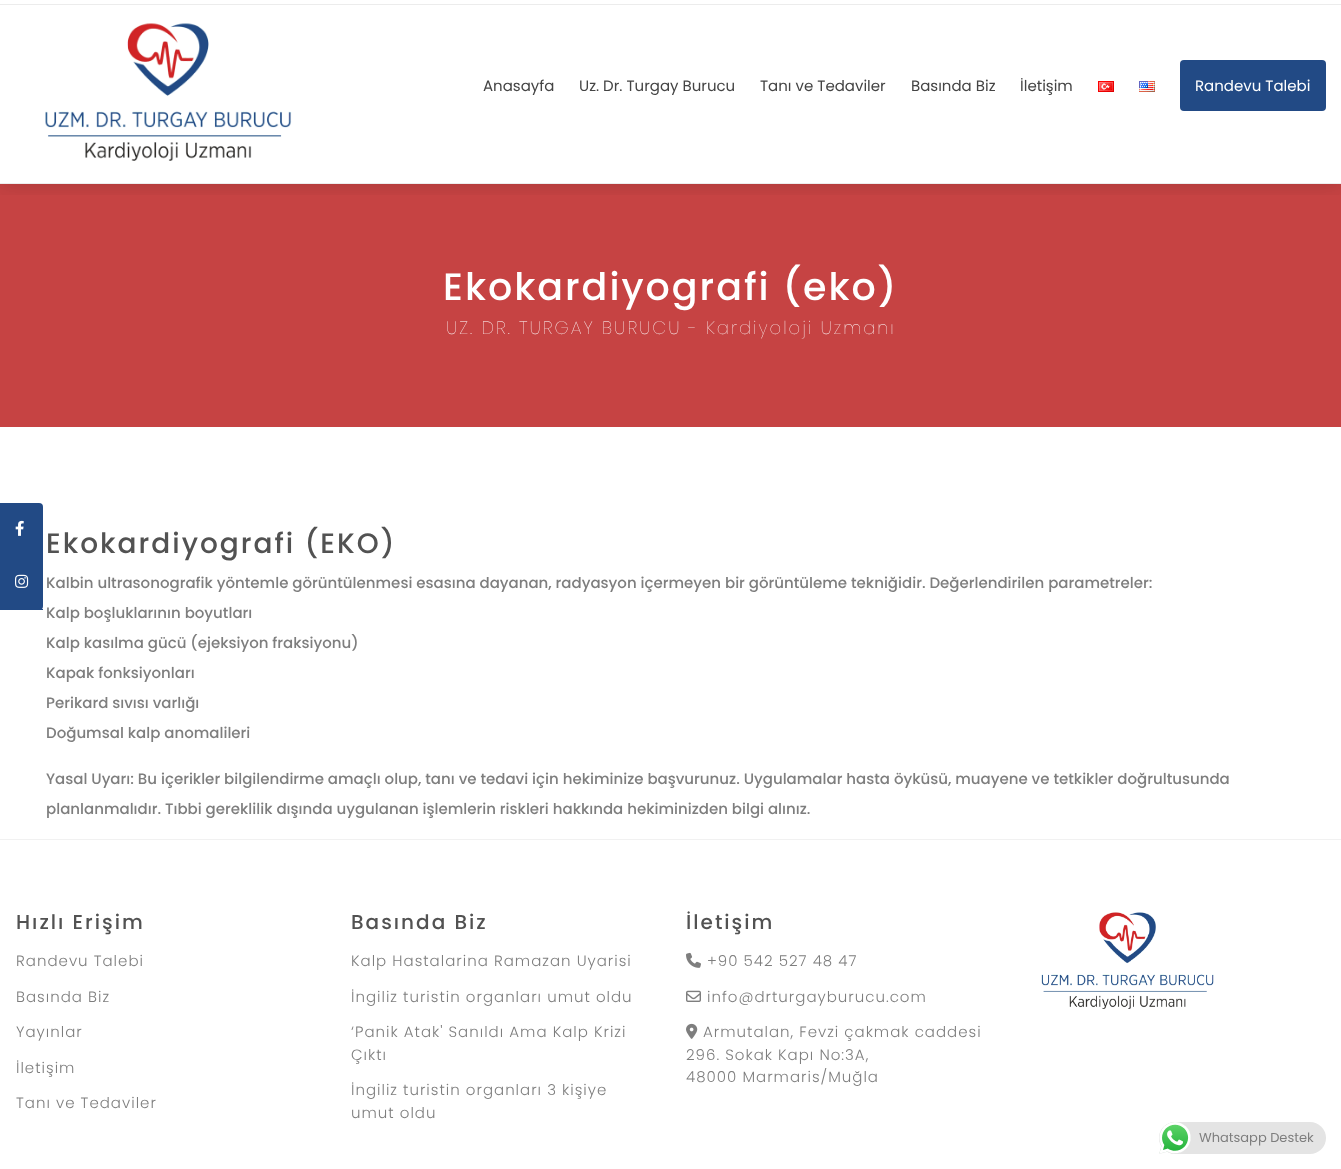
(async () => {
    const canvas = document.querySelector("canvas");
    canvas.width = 1341;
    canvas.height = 1169;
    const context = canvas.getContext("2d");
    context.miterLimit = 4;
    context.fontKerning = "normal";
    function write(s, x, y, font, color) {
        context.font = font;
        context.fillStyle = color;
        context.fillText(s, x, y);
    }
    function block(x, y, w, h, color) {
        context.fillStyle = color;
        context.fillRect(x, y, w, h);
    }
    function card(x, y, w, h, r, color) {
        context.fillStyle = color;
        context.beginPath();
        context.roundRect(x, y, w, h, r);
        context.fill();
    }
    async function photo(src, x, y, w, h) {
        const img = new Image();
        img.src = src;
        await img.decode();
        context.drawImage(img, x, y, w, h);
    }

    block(0, 0, 1341, 1169, "rgb(255, 255, 255)");
    block(0, 184, 1341, 243, "rgb(198, 67, 67)");
    context.save();
    context.beginPath();
    context.rect(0, 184, 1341, 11);
    context.clip();
    context.fillStyle = "rgba(0, 0, 0, 0.16)";
    context.filter = "blur(10px)";
    context.beginPath();
    context.rect(0, -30, 1341, 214);
    context.fill();
    context.filter = "none";
    context.restore();
    block(0, 183, 1341, 1, "rgb(237, 237, 237)");
    block(0, 4, 1341, 1, "rgb(236, 236, 236)");
    await photo("media/1.png", 45, 23, 247, 138);
    write("Anasayfa", 483, 91, "15px Poppins", "rgb(68, 68, 68)");
    write("Uz. Dr. Turgay Burucu", 579, 91, "15px Poppins", "rgb(68, 68, 68)");
    write("Tanı ve Tedaviler", 760, 91, "15px Poppins", "rgb(68, 68, 68)");
    write("Basında Biz", 911, 91, "15px Poppins", "rgb(68, 68, 68)");
    write("İletişim", 1020, 91, "15px Poppins", "rgb(68, 68, 68)");
    await photo("media/2.png", 1098, 81, 16, 11);
    await photo("media/3.png", 1139, 81, 16, 11);
    card(1180, 60, 146, 51, 4, "rgb(34, 74, 133)");
    write("Randevu Talebi", 1195, 91, "15px Poppins", "rgb(255, 255, 255)");
    context.fillStyle = "rgb(34, 74, 133)";
    context.beginPath();
    context.roundRect(0, 503, 43, 107, [0, 4, 4, 0]);
    context.fill();
    await photo("media/4.png", 15, 520, 9, 16);
    block(39, 609, 4, 1, "rgb(34, 74, 133)");
    await photo("media/5.png", 15, 574, 14, 14);
    context.letterSpacing = "2px";
    write("Ekokardiyografi (eko)", 443, 300, "500 38px Poppins", "rgb(255, 255, 255)");
    write("UZ. DR. TURGAY BURUCU - Kardiyoloji Uzmanı", 446, 334, "100 18px Poppins", "rgb(255, 255, 255)");
    write("Ekokardiyografi (EKO)", 46, 553, "500 28px Poppins", "rgb(82, 82, 82)");
    context.letterSpacing = "0px";
    write("Kalbin ultrasonografik yöntemle görüntülenmesi esasına dayanan, radyasyon içermeyen bir görüntüleme tekniğidir. Değerlendirilen parametreler:", 46, 588, "500 15px Poppins", "rgb(126, 126, 126)");
    write("Kalp boşluklarının boyutları", 46, 618, "500 15px Poppins", "rgb(126, 126, 126)");
    write("Kalp kasılma gücü (ejeksiyon fraksiyonu)", 46, 648, "500 15px Poppins", "rgb(126, 126, 126)");
    write("Kapak fonksiyonları", 46, 678, "500 15px Poppins", "rgb(126, 126, 126)");
    write("Perikard sıvısı varlığı", 46, 708, "500 15px Poppins", "rgb(126, 126, 126)");
    write("Doğumsal kalp anomalileri", 46, 738, "500 15px Poppins", "rgb(126, 126, 126)");
    write("Yasal Uyarı: Bu içerikler bilgilendirme amaçlı olup, tanı ve tedavi için hekiminize başvurunuz. Uygulamalar hasta öyküsü, muayene ve tetkikler doğrultusunda", 46, 784, "500 15px Poppins", "rgb(126, 126, 126)");
    write("planlanmalıdır. Tıbbi gereklilik dışında uygulanan işlemlerin riskleri hakkında hekiminizden bilgi alınız.", 46, 814, "500 15px Poppins", "rgb(126, 126, 126)");
    block(0, 839, 1341, 1, "rgb(241, 241, 241)");
    context.letterSpacing = "2px";
    write("Hızlı Erişim", 16, 929, "500 20px Poppins", "rgb(82, 82, 82)");
    context.letterSpacing = "1px";
    write("Randevu Talebi", 16, 966, "300 15px Poppins", "rgb(126, 126, 126)");
    write("Basında Biz", 16, 1002, "300 15px Poppins", "rgb(126, 126, 126)");
    write("Yayınlar", 16, 1037, "300 15px Poppins", "rgb(126, 126, 126)");
    write("İletişim", 16, 1073, "300 15px Poppins", "rgb(126, 126, 126)");
    write("Tanı ve Tedaviler", 16, 1108, "300 15px Poppins", "rgb(126, 126, 126)");
    context.letterSpacing = "2px";
    write("Basında Biz", 351, 929, "500 20px Poppins", "rgb(82, 82, 82)");
    context.letterSpacing = "1px";
    write("Kalp Hastalarina Ramazan Uyarisi", 351, 966, "300 15px Poppins", "rgb(126, 126, 126)");
    write("İngiliz turistin organları umut oldu", 351, 1002, "300 15px Poppins", "rgb(126, 126, 126)");
    write("‘Panik Atak' Sanıldı Ama Kalp Krizi", 351, 1037, "300 15px Poppins", "rgb(126, 126, 126)");
    write("Çıktı", 351, 1060, "300 15px Poppins", "rgb(126, 126, 126)");
    write("İngiliz turistin organları 3 kişiye", 351, 1095, "300 15px Poppins", "rgb(126, 126, 126)");
    write("umut oldu", 351, 1118, "300 15px Poppins", "rgb(126, 126, 126)");
    context.letterSpacing = "2px";
    write("İletişim", 686, 929, "500 20px Poppins", "rgb(82, 82, 82)");
    await photo("media/6.png", 686, 952, 15, 16);
    context.letterSpacing = "1px";
    write("+90 542 527 48 47", 707, 966, "300 15px Poppins", "rgb(126, 126, 126)");
    await photo("media/7.png", 686, 990, 15, 12);
    write("info@drturgayburucu.com", 707, 1002, "300 15px Poppins", "rgb(126, 126, 126)");
    await photo("media/8.png", 686, 1023, 12, 16);
    write("Armutalan, Fevzi çakmak caddesi", 703, 1037, "300 15px Poppins", "rgb(126, 126, 126)");
    write("296. Sokak Kapı No:3A,", 686, 1060, "300 15px Poppins", "rgb(126, 126, 126)");
    write("48000 Marmaris/Muğla", 686, 1082, "300 15px Poppins", "rgb(126, 126, 126)");
    await photo("media/9.png", 1041, 912, 173, 97);
    card(1159, 1122, 167, 32, 16, "rgb(228, 228, 228)");
    await photo("media/10.png", 1159, 1122, 32, 32);
    context.letterSpacing = "0px";
    write("Whatsapp Destek", 1199, 1142, "13px Poppins", "rgb(126, 126, 126)");
})();
